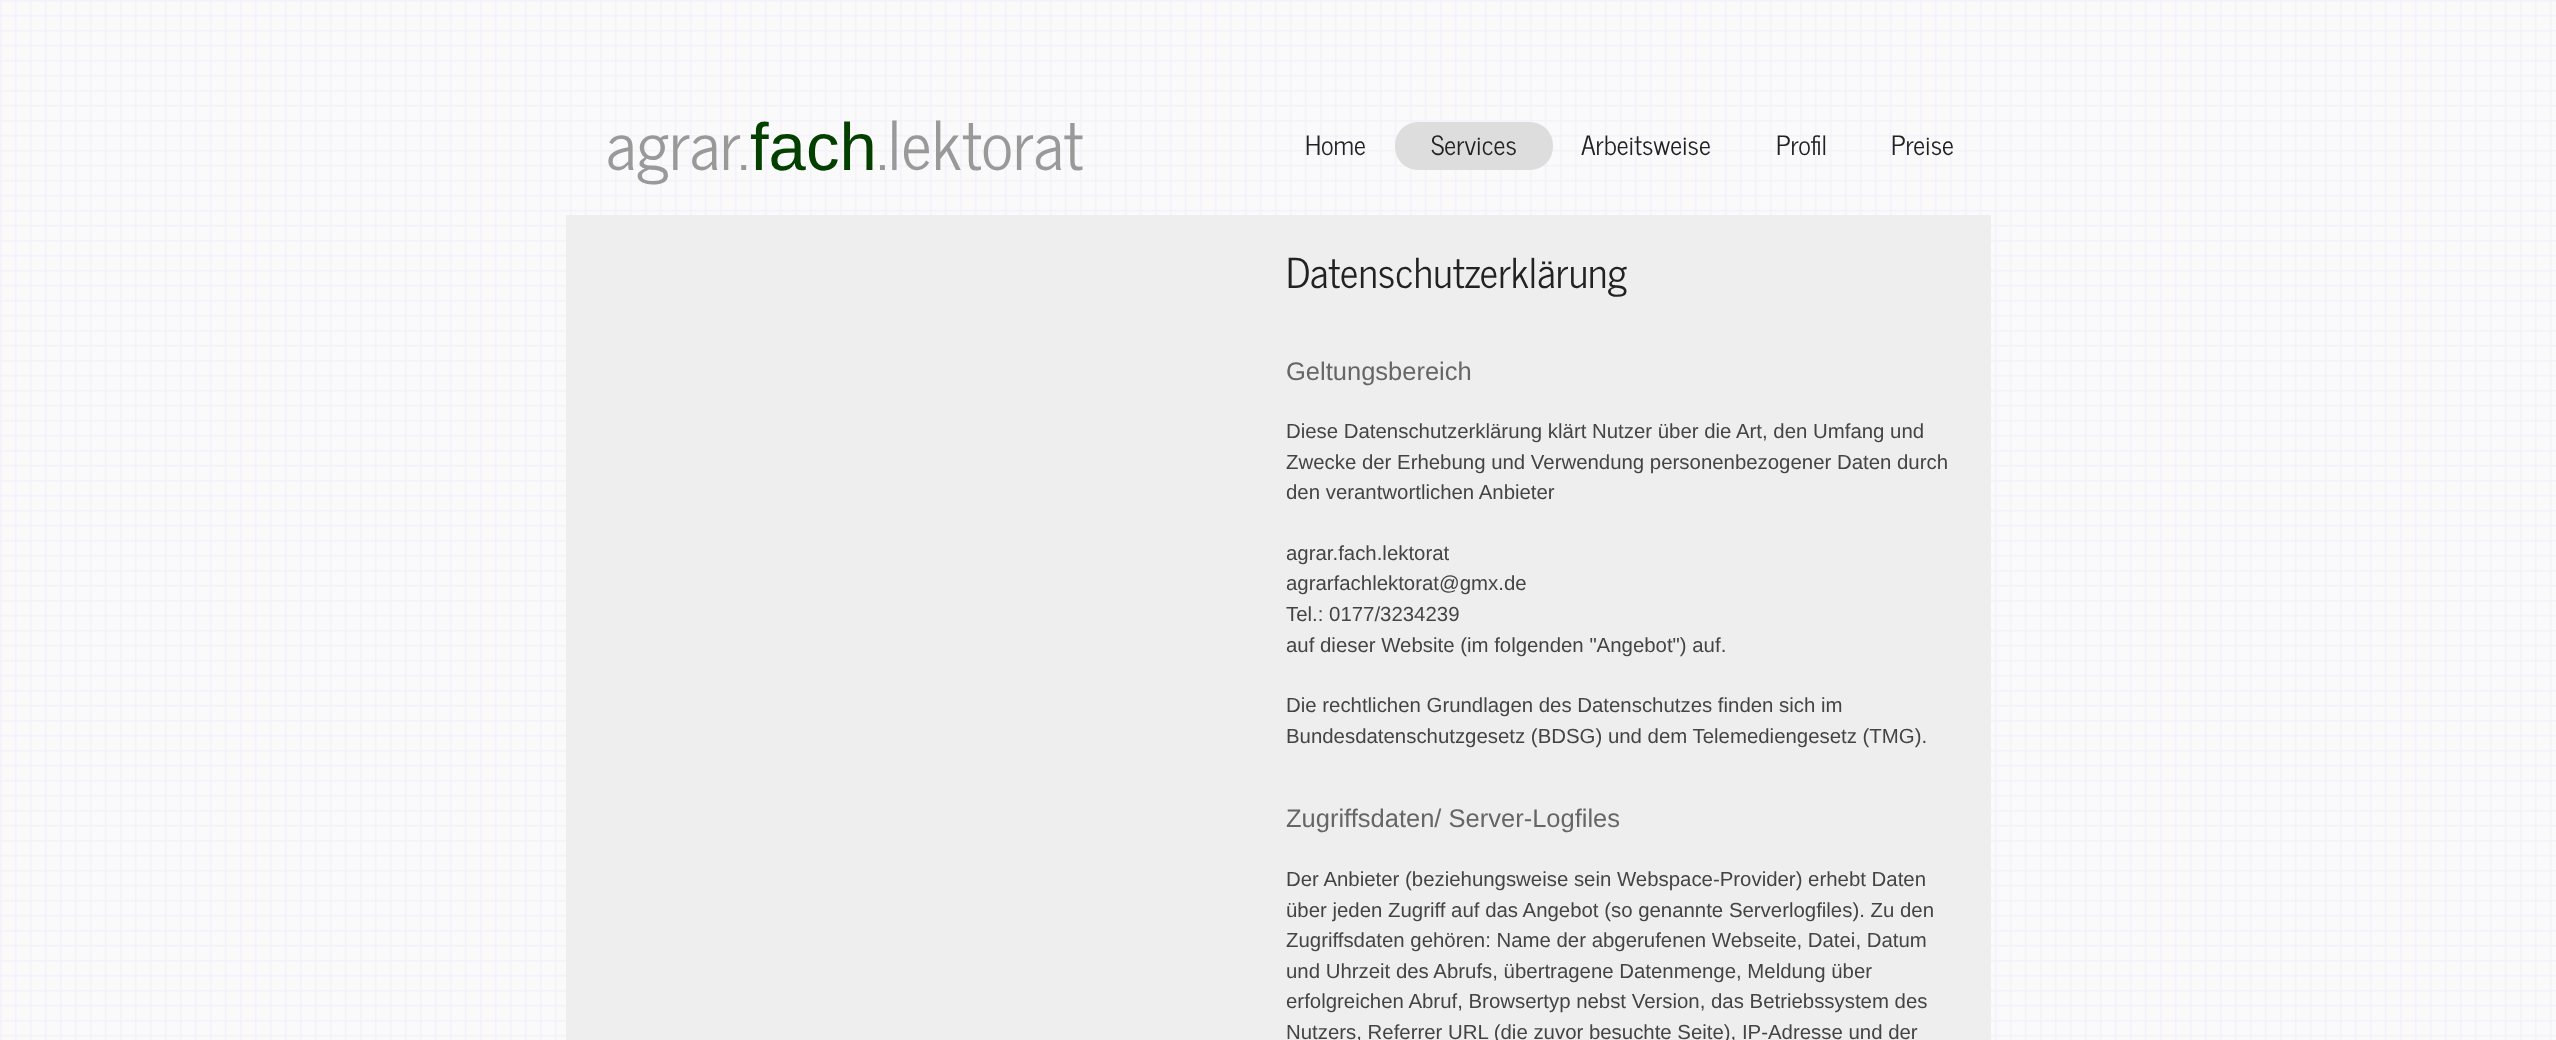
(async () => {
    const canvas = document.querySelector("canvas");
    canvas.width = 2556;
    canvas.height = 1040;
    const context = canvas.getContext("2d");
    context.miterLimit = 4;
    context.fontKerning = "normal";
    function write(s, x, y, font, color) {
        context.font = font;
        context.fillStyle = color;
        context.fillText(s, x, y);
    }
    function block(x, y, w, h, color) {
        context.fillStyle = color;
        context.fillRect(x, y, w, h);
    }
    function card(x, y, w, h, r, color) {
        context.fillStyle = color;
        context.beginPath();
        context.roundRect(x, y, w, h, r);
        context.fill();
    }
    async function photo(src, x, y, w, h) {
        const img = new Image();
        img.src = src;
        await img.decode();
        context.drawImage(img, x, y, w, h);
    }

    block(0, 0, 2556, 1040, "rgb(255, 255, 255)");
    await photo("media/1.png", 0, 0, 2556, 1040);
    write("agrar.", 606, 170, "67px News Cycle", "rgb(153, 153, 153)");
    write("fach", 750, 170, "67px Liberation Sans", "rgb(3, 64, 0)");
    write(".lektorat", 877, 170, "67px News Cycle", "rgb(153, 153, 153)");
    write("Home", 1305, 155, "26.5px News Cycle", "rgb(34, 34, 34)");
    card(1395, 122, 158, 48, 23, "rgb(221, 221, 221)");
    write("Services", 1431, 155, "26.5px News Cycle", "rgb(34, 34, 34)");
    write("Arbeitsweise", 1581, 155, "26.5px News Cycle", "rgb(34, 34, 34)");
    write("Profil", 1776, 155, "26.5px News Cycle", "rgb(34, 34, 34)");
    write("Preise", 1891, 155, "26.5px News Cycle", "rgb(34, 34, 34)");
    block(566, 215, 1425, 825, "rgb(238, 238, 238)");
    write("Datenschutzerklärung", 1286, 288, "40.75px News Cycle", "rgb(34, 34, 34)");
    write("Geltungsbereich", 1286, 380, "25.5px Liberation Sans", "rgb(102, 102, 102)");
    write("Diese Datenschutzerklärung klärt Nutzer über die Art, den Umfang und", 1286, 438, "20.4px Liberation Sans", "rgb(68, 68, 68)");
    write("Zwecke der Erhebung und Verwendung personenbezogener Daten durch", 1286, 469, "20.4px Liberation Sans", "rgb(68, 68, 68)");
    write("den verantwortlichen Anbieter", 1286, 499, "20.4px Liberation Sans", "rgb(68, 68, 68)");
    write("agrar.fach.lektorat", 1286, 560, "20.4px Liberation Sans", "rgb(68, 68, 68)");
    write("agrarfachlektorat@gmx.de", 1286, 590, "20.4px Liberation Sans", "rgb(68, 68, 68)");
    write("Tel.: 0177/3234239", 1286, 621, "20.4px Liberation Sans", "rgb(68, 68, 68)");
    write("auf dieser Website (im folgenden \"Angebot\") auf.", 1286, 652, "20.4px Liberation Sans", "rgb(68, 68, 68)");
    write("Die rechtlichen Grundlagen des Datenschutzes finden sich im", 1286, 712, "20.4px Liberation Sans", "rgb(68, 68, 68)");
    write("Bundesdatenschutzgesetz (BDSG) und dem Telemediengesetz (TMG).", 1286, 743, "20.4px Liberation Sans", "rgb(68, 68, 68)");
    write("Zugriffsdaten/ Server-Logfiles", 1286, 827, "25.5px Liberation Sans", "rgb(102, 102, 102)");
    write("Der Anbieter (beziehungsweise sein Webspace-Provider) erhebt Daten", 1286, 886, "20.4px Liberation Sans", "rgb(68, 68, 68)");
    write("über jeden Zugriff auf das Angebot (so genannte Serverlogfiles). Zu den", 1286, 917, "20.4px Liberation Sans", "rgb(68, 68, 68)");
    write("Zugriffsdaten gehören: Name der abgerufenen Webseite, Datei, Datum", 1286, 947, "20.4px Liberation Sans", "rgb(68, 68, 68)");
    write("und Uhrzeit des Abrufs, übertragene Datenmenge, Meldung über", 1286, 978, "20.4px Liberation Sans", "rgb(68, 68, 68)");
    write("erfolgreichen Abruf, Browsertyp nebst Version, das Betriebssystem des", 1286, 1008, "20.4px Liberation Sans", "rgb(68, 68, 68)");
    write("Nutzers, Referrer URL (die zuvor besuchte Seite), IP-Adresse und der", 1286, 1039, "20.4px Liberation Sans", "rgb(68, 68, 68)");
})();
